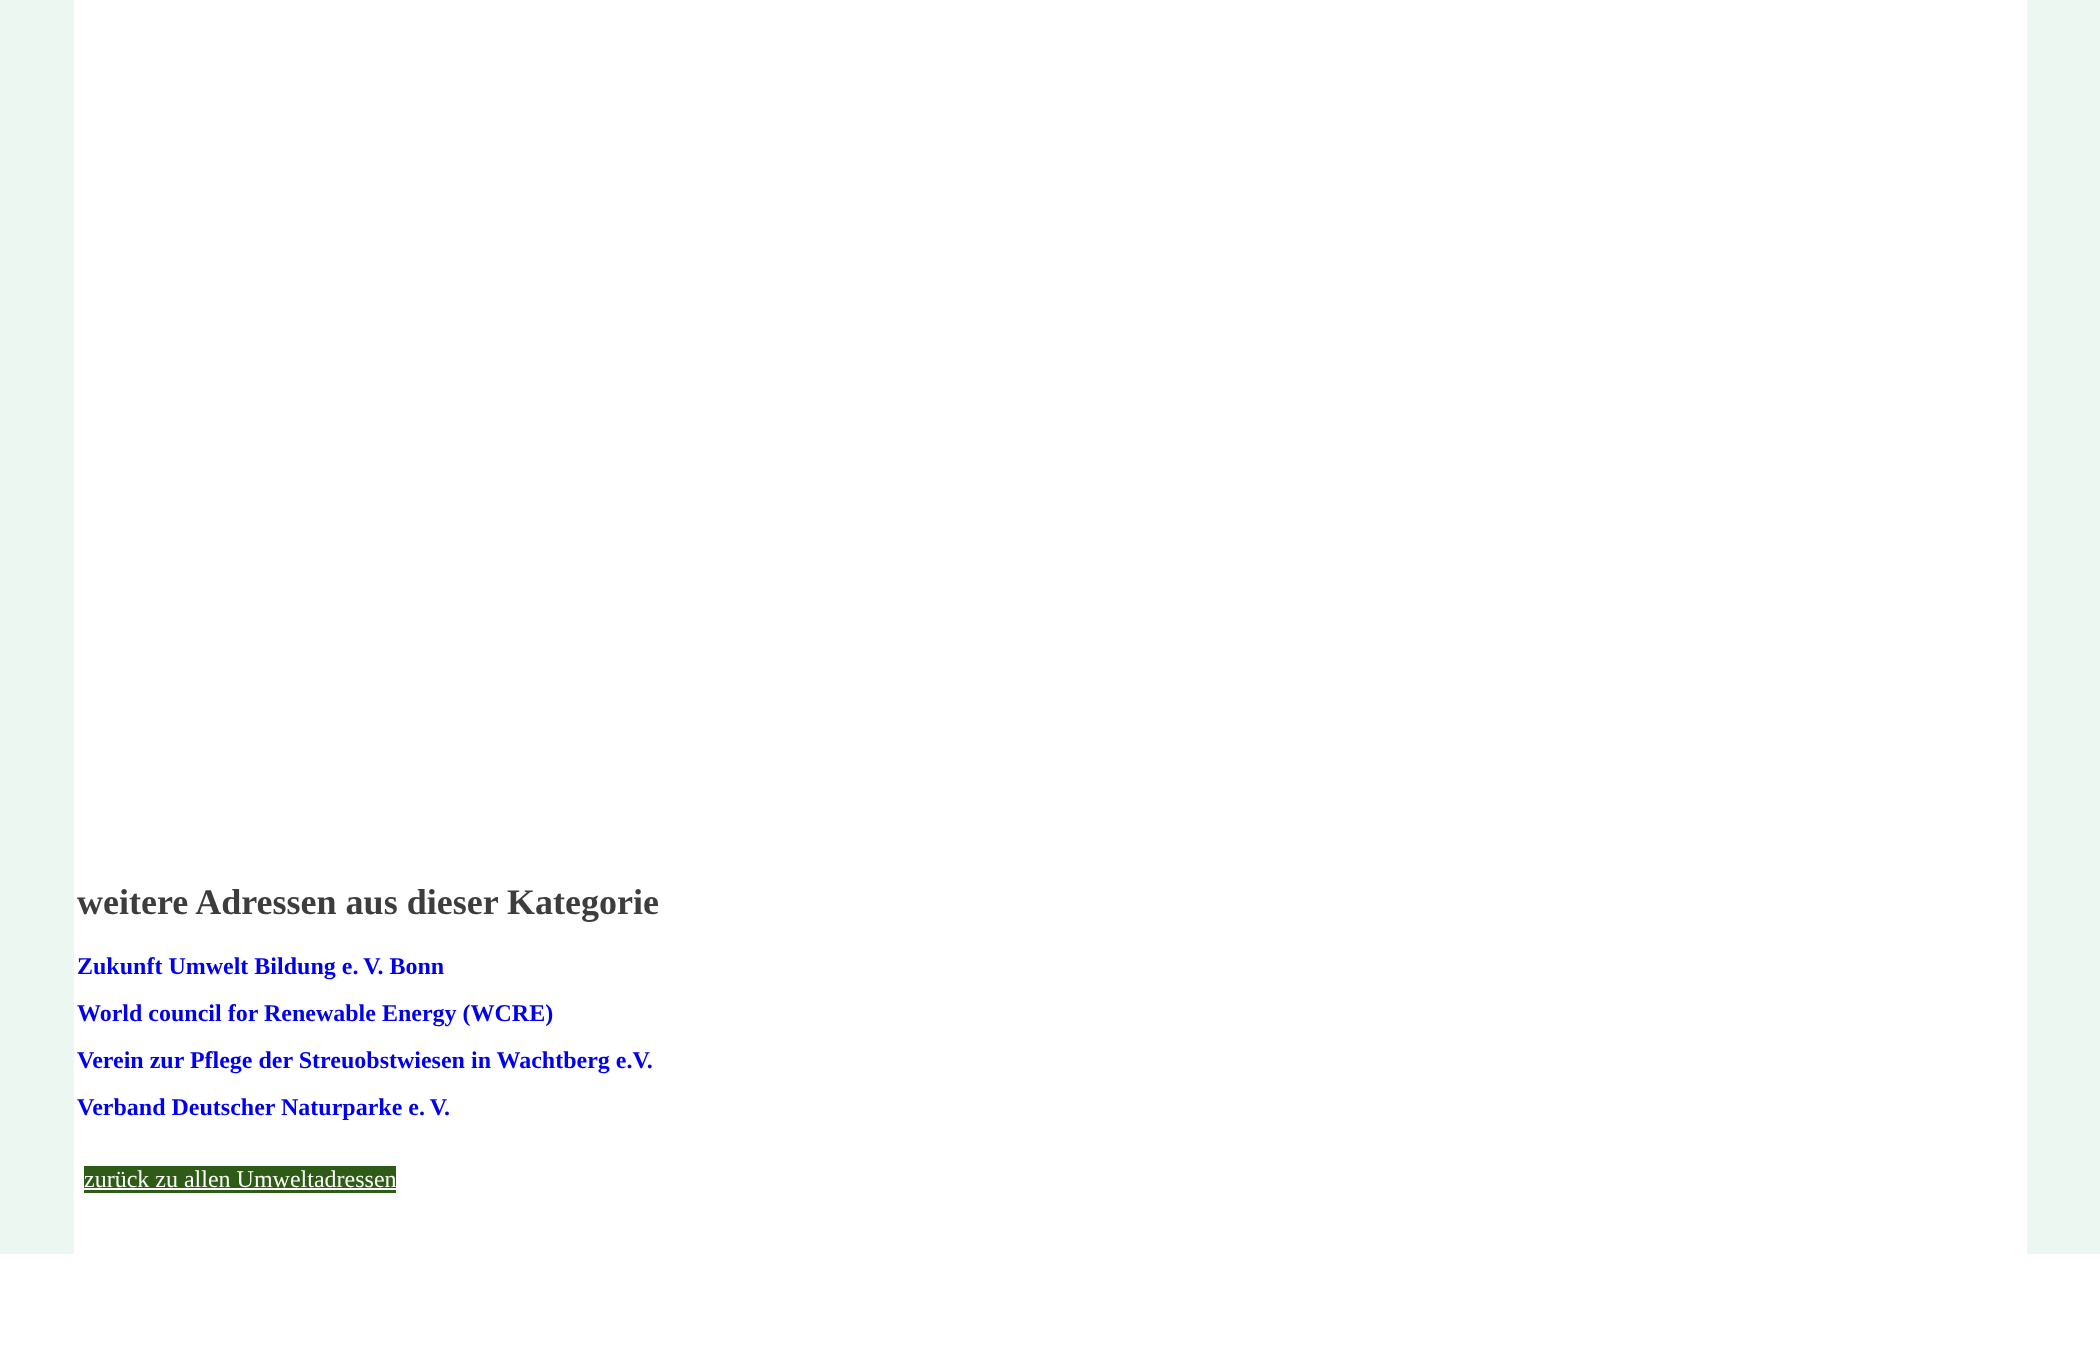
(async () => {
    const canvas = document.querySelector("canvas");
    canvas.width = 2100;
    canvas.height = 1367;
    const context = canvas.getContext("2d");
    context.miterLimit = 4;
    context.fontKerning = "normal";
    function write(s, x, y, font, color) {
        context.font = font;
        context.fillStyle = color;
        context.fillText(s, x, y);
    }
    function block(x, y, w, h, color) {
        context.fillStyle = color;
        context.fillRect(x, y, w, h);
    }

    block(0, 0, 2100, 1367, "rgb(255, 255, 255)");
    block(0, 0, 2100, 1254, "rgb(237, 247, 241)");
    block(74, 0, 1953, 1254, "rgb(255, 255, 255)");
    write("weitere Adressen aus dieser Kategorie", 77, 914, "bold 36px Liberation Serif", "rgb(61, 61, 61)");
    write("Zukunft Umwelt Bildung e. V. Bonn", 77, 974, "bold 24px Liberation Serif", "rgb(0, 0, 238)");
    write("World council for Renewable Energy (WCRE)", 77, 1021, "bold 24px Liberation Serif", "rgb(0, 0, 238)");
    write("Verein zur Pflege der Streuobstwiesen in Wachtberg e.V.", 77, 1068, "bold 24px Liberation Serif", "rgb(0, 0, 238)");
    write("Verband Deutscher Naturparke e. V.", 77, 1115, "bold 24px Liberation Serif", "rgb(0, 0, 238)");
    block(84, 1166, 312, 27, "rgb(46, 91, 22)");
    write("zurück zu allen Umweltadressen", 84, 1187, "24px Liberation Serif", "rgb(255, 255, 255)");
    block(84, 1188, 312, 2, "rgb(255, 255, 255)");
})();
